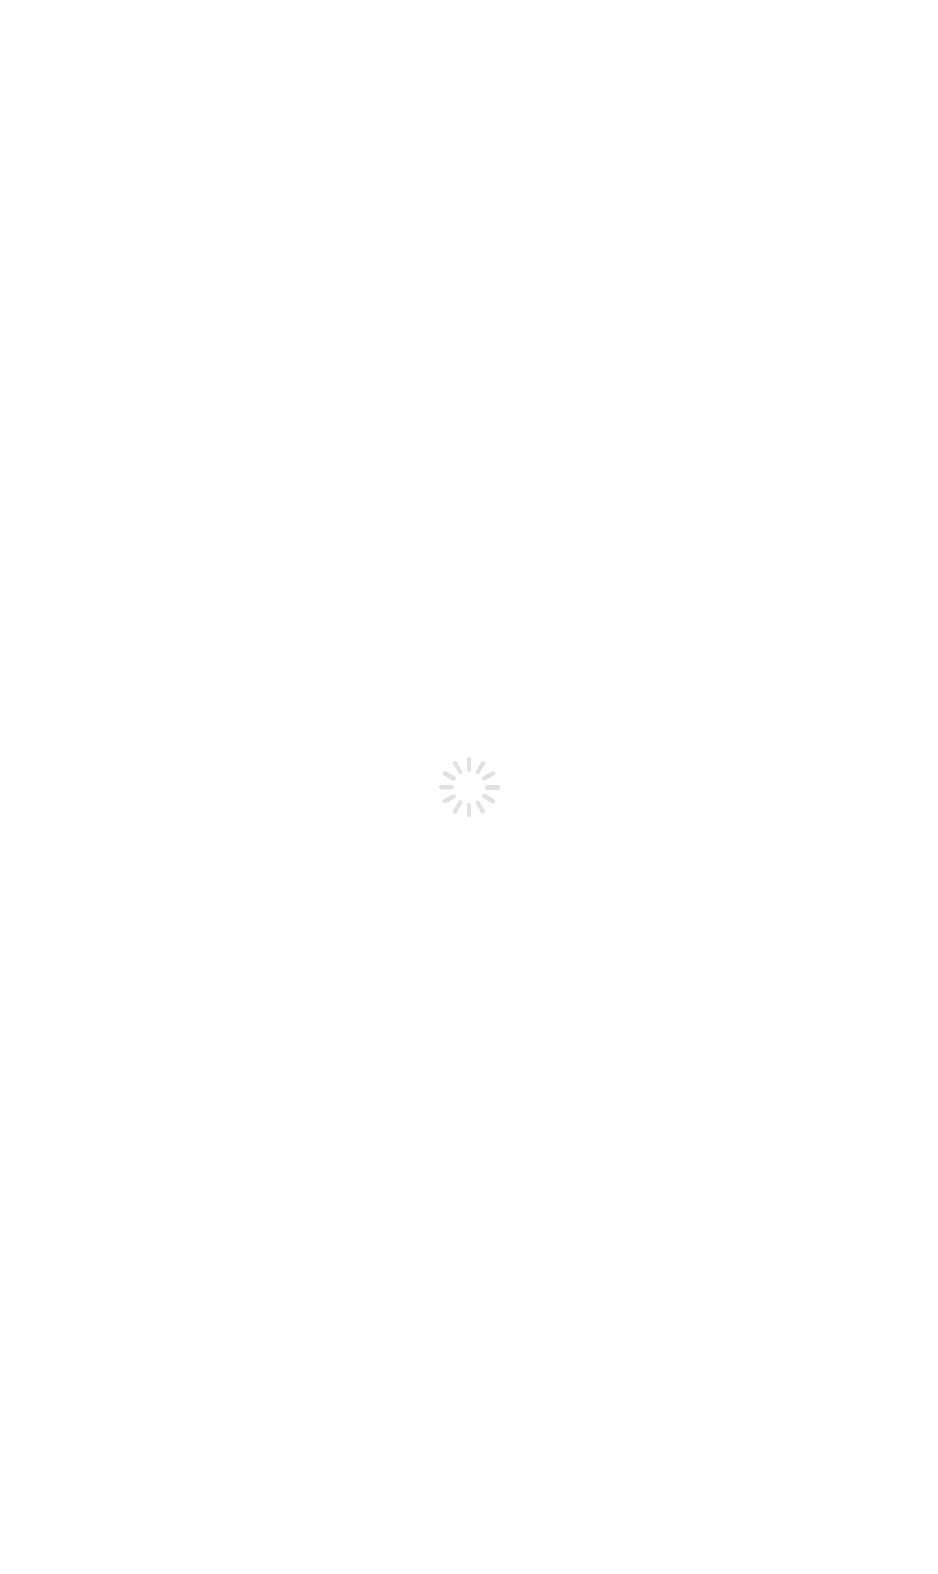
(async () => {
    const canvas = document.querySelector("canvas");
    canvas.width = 938;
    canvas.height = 1574;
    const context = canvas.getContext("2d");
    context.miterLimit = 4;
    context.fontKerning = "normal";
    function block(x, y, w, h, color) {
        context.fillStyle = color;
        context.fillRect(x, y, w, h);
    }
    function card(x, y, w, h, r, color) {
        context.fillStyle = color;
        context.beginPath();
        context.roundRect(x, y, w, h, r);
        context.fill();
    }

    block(0, 0, 938, 1574, "rgb(255, 255, 255)");
    context.fillStyle = "rgb(225, 225, 225)";
    context.beginPath();
    context.moveTo(485.5, 794);
    context.lineTo(491.5, 797.5);
    context.bezierCurveTo(493, 798.5, 497, 800, 494.5, 803);
    context.bezierCurveTo(493, 804.5, 490.5, 802, 489, 801.5);
    context.lineTo(482.5, 797.5);
    context.bezierCurveTo(481, 795.5, 483.5, 793, 485.5, 794);
    context.closePath();
    context.fill();
    context.beginPath();
    context.moveTo(479.5, 801.5);
    context.lineTo(483, 807.5);
    context.bezierCurveTo(484.5, 809, 487, 812.5, 483.5, 813.5);
    context.bezierCurveTo(481, 814.5, 480, 811, 479.5, 809.5);
    context.lineTo(475.5, 803);
    context.bezierCurveTo(475.5, 800.5, 478.5, 799.5, 479.5, 801.5);
    context.closePath();
    context.moveTo(471, 805);
    context.lineTo(471, 812);
    context.bezierCurveTo(471, 814, 472, 818, 468.5, 817);
    context.bezierCurveTo(466, 816.5, 467, 813.5, 467, 812);
    context.lineTo(467, 804);
    context.bezierCurveTo(467.5, 802, 471, 802.5, 471, 805);
    context.closePath();
    context.moveTo(462, 803.5);
    context.lineTo(458.5, 809.5);
    context.bezierCurveTo(457.5, 811.5, 456, 815, 453.5, 813);
    context.bezierCurveTo(451.5, 811.5, 454, 808.5, 455, 807.5);
    context.lineTo(459, 800.5);
    context.bezierCurveTo(460.5, 799.5, 463.5, 801.5, 462, 803.5);
    context.closePath();
    context.fill();
    context.beginPath();
    context.moveTo(455, 798);
    context.lineTo(449, 801.5);
    context.bezierCurveTo(447, 802.5, 444, 805, 442.5, 801.5);
    context.bezierCurveTo(442, 799.5, 445.5, 798.5, 446.5, 797.5);
    context.lineTo(453.5, 794);
    context.bezierCurveTo(455.5, 793.5, 457, 797, 455, 798);
    context.closePath();
    context.moveTo(451.5, 789.5);
    context.lineTo(444.5, 789.5);
    context.bezierCurveTo(442.5, 789.5, 438.5, 790, 439, 786.5);
    context.bezierCurveTo(439.5, 784, 443, 785, 444.5, 785);
    context.lineTo(452.5, 785);
    context.bezierCurveTo(454.5, 786, 454, 789.5, 451.5, 789.5);
    context.closePath();
    context.moveTo(452.5, 780.5);
    context.lineTo(446.5, 777);
    context.bezierCurveTo(445, 776, 441, 774.5, 443.5, 771.5);
    context.bezierCurveTo(445, 770, 447.5, 772.5, 449, 773);
    context.lineTo(455.5, 777);
    context.bezierCurveTo(457, 779, 454.5, 781.5, 452.5, 780.5);
    context.closePath();
    context.fill();
    context.beginPath();
    context.moveTo(458.5, 773);
    context.lineTo(455, 767);
    context.bezierCurveTo(453.5, 765.5, 451, 762, 454.5, 761);
    context.bezierCurveTo(457, 760, 458, 763.5, 458.5, 765);
    context.lineTo(462.5, 771.5);
    context.bezierCurveTo(462.5, 774, 459.5, 775, 458.5, 773);
    context.closePath();
    context.moveTo(467, 770);
    context.lineTo(467, 763);
    context.bezierCurveTo(467, 760.5, 466, 756.5, 469.5, 757.5);
    context.bezierCurveTo(472, 758, 471, 761, 471, 763);
    context.lineTo(471, 770.5);
    context.bezierCurveTo(470.5, 772.5, 467, 772, 467, 770);
    context.closePath();
    context.moveTo(476, 771);
    context.lineTo(479.5, 765);
    context.bezierCurveTo(480.5, 763, 482, 759.5, 484.5, 761.5);
    context.bezierCurveTo(486.5, 763, 484, 766, 483, 767);
    context.lineTo(479, 774);
    context.bezierCurveTo(477.5, 775, 474.5, 773, 476, 771);
    context.closePath();
    context.fill();
    context.beginPath();
    context.moveTo(483, 776.5);
    context.lineTo(489, 773);
    context.bezierCurveTo(491, 772, 494, 769.5, 495.5, 773);
    context.bezierCurveTo(496, 775, 492.5, 776, 491.5, 777);
    context.lineTo(484.5, 780.5);
    context.bezierCurveTo(482.5, 781, 481, 777.5, 483, 776.5);
    context.closePath();
    context.fill();
    card(485, 785, 15, 5, 2, "rgb(225, 225, 225)");
})();
